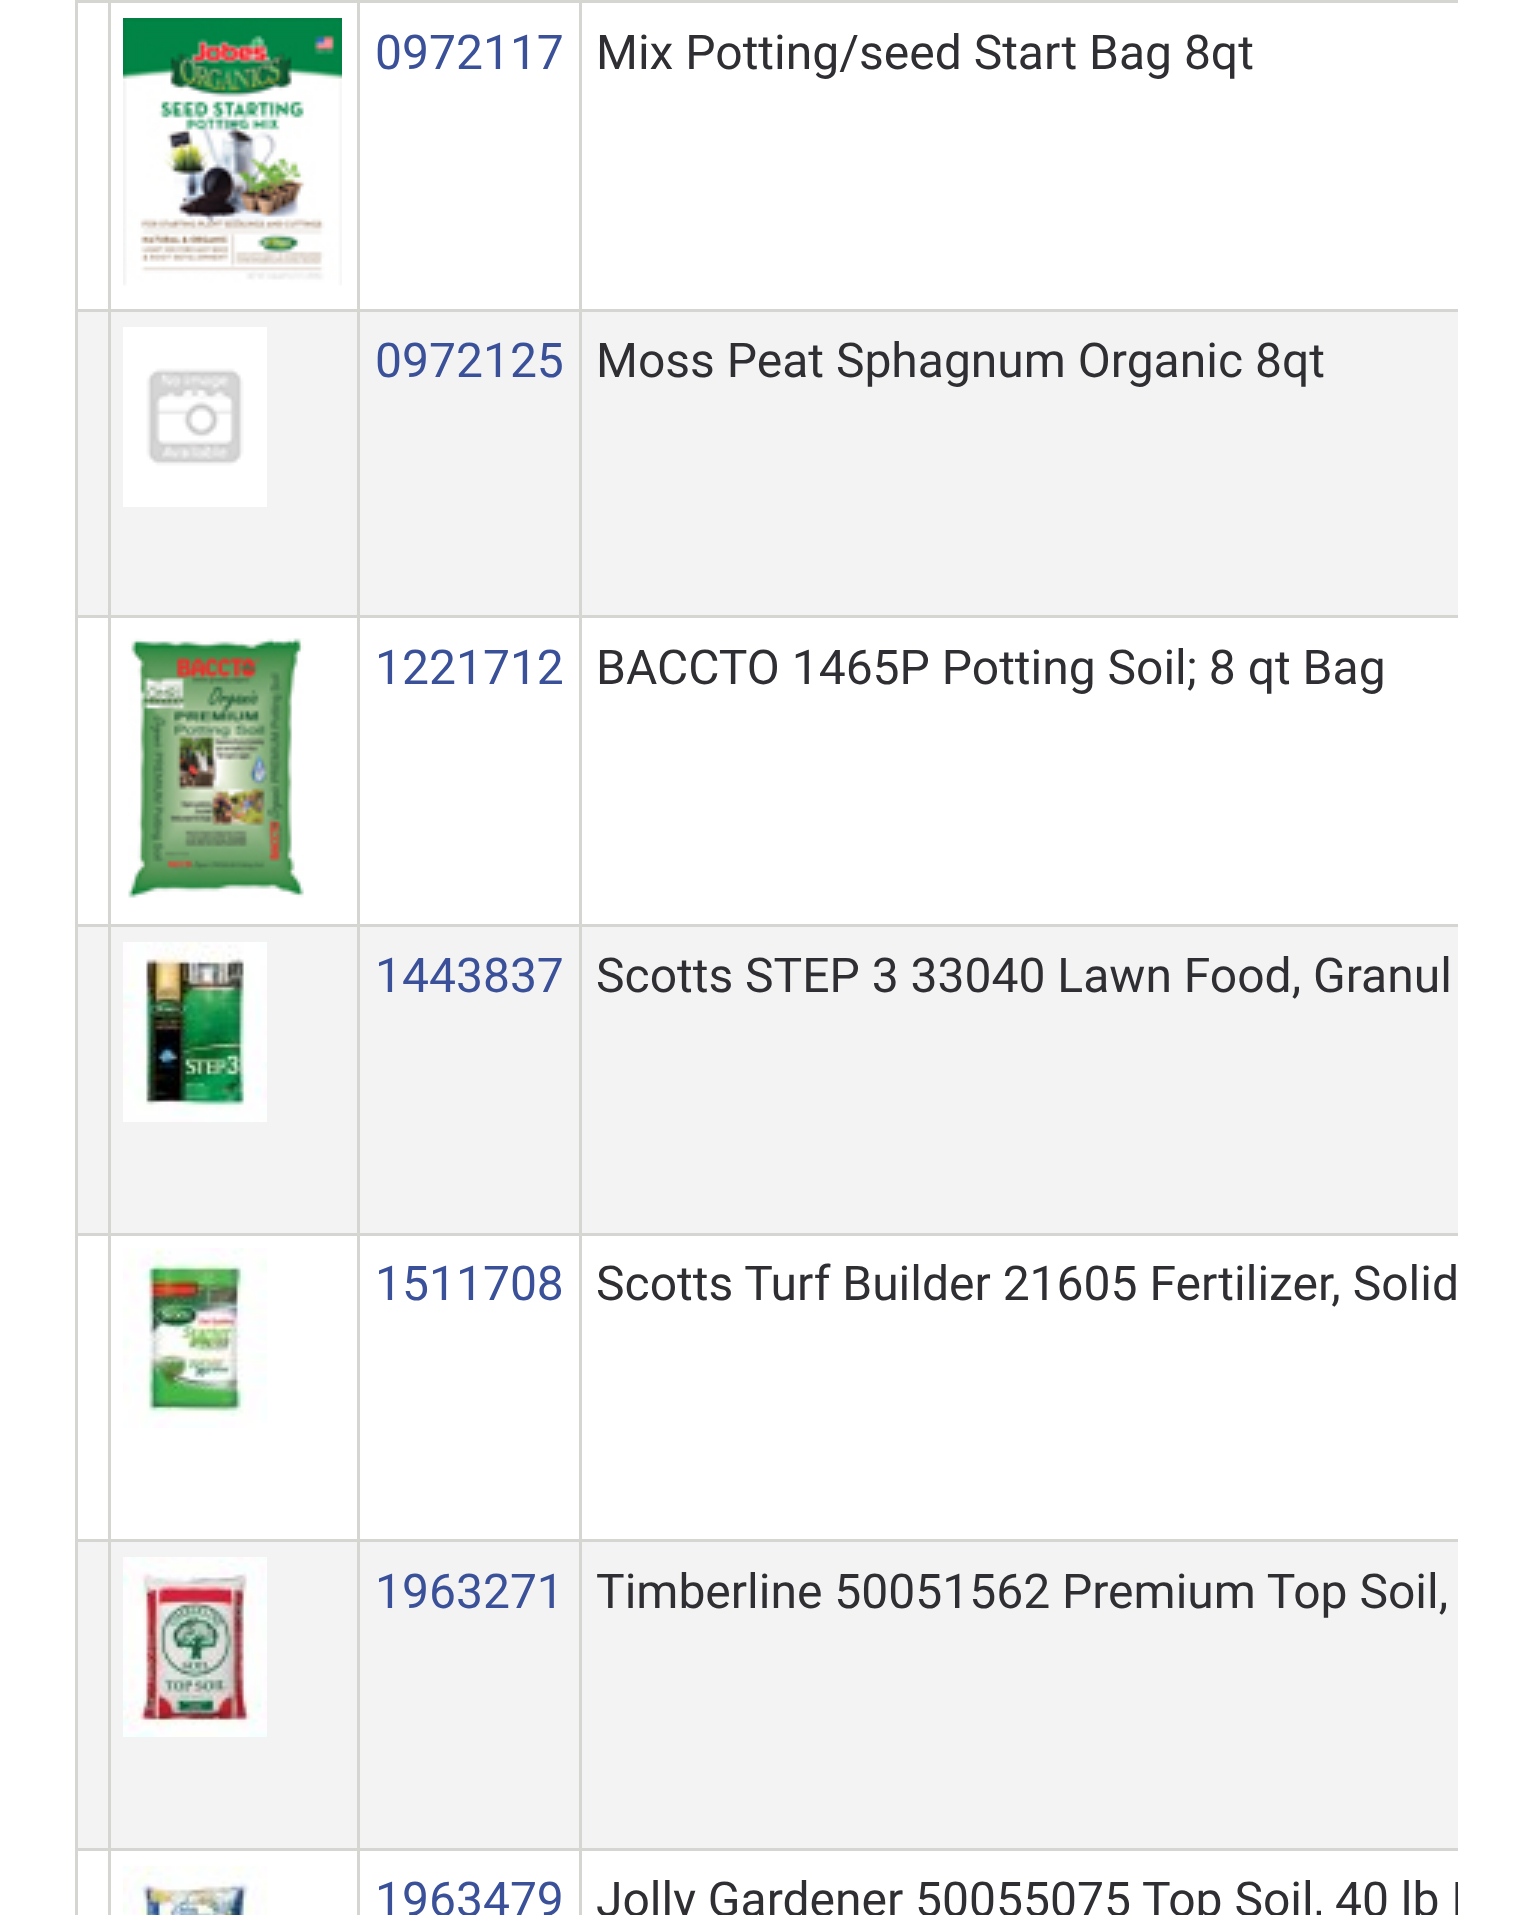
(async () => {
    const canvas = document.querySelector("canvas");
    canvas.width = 1516;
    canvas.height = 1915;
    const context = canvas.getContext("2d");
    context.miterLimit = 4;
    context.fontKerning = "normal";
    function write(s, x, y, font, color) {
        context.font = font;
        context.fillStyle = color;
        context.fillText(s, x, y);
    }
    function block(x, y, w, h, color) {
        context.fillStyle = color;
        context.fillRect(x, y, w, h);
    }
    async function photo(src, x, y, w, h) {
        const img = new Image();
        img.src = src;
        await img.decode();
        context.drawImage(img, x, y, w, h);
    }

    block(0, 0, 1516, 1915, "rgb(255, 255, 255)");
    block(579, 0, 879, 3, "rgb(213, 214, 210)");
    block(579, 309, 879, 3, "rgb(213, 214, 210)");
    block(78, 312, 1380, 303, "rgb(243, 243, 243)");
    block(579, 615, 879, 3, "rgb(213, 214, 210)");
    block(579, 924, 879, 3, "rgb(213, 214, 210)");
    block(78, 927, 1380, 306, "rgb(243, 243, 243)");
    block(579, 1233, 879, 3, "rgb(213, 214, 210)");
    block(579, 1539, 879, 3, "rgb(213, 214, 210)");
    block(78, 1542, 1380, 306, "rgb(243, 243, 243)");
    block(579, 1848, 879, 3, "rgb(213, 214, 210)");
    block(579, 1848, 3, 67, "rgb(213, 214, 210)");
    block(357, 1848, 225, 3, "rgb(213, 214, 210)");
    block(579, 1539, 3, 312, "rgb(213, 214, 210)");
    block(357, 1539, 225, 3, "rgb(213, 214, 210)");
    block(579, 1233, 3, 309, "rgb(213, 214, 210)");
    block(357, 1233, 225, 3, "rgb(213, 214, 210)");
    block(579, 924, 3, 312, "rgb(213, 214, 210)");
    block(357, 924, 225, 3, "rgb(213, 214, 210)");
    block(579, 615, 3, 312, "rgb(213, 214, 210)");
    block(357, 615, 225, 3, "rgb(213, 214, 210)");
    block(579, 309, 3, 309, "rgb(213, 214, 210)");
    block(357, 309, 225, 3, "rgb(213, 214, 210)");
    block(579, 0, 3, 312, "rgb(213, 214, 210)");
    block(357, 0, 225, 3, "rgb(213, 214, 210)");
    block(357, 1848, 3, 67, "rgb(213, 214, 210)");
    block(108, 1848, 252, 3, "rgb(213, 214, 210)");
    block(357, 1539, 3, 312, "rgb(213, 214, 210)");
    block(108, 1539, 252, 3, "rgb(213, 214, 210)");
    block(357, 1233, 3, 309, "rgb(213, 214, 210)");
    block(108, 1233, 252, 3, "rgb(213, 214, 210)");
    block(357, 924, 3, 312, "rgb(213, 214, 210)");
    block(108, 924, 252, 3, "rgb(213, 214, 210)");
    block(357, 615, 3, 312, "rgb(213, 214, 210)");
    block(108, 615, 252, 3, "rgb(213, 214, 210)");
    block(357, 309, 3, 309, "rgb(213, 214, 210)");
    block(108, 309, 252, 3, "rgb(213, 214, 210)");
    block(357, 0, 3, 312, "rgb(213, 214, 210)");
    block(108, 0, 252, 3, "rgb(213, 214, 210)");
    block(108, 1848, 3, 67, "rgb(213, 214, 210)");
    block(75, 1848, 36, 3, "rgb(213, 214, 210)");
    block(108, 1539, 3, 312, "rgb(213, 214, 210)");
    block(75, 1539, 36, 3, "rgb(213, 214, 210)");
    block(108, 1233, 3, 309, "rgb(213, 214, 210)");
    block(75, 1233, 36, 3, "rgb(213, 214, 210)");
    block(108, 924, 3, 312, "rgb(213, 214, 210)");
    block(75, 924, 36, 3, "rgb(213, 214, 210)");
    block(108, 615, 3, 312, "rgb(213, 214, 210)");
    block(75, 615, 36, 3, "rgb(213, 214, 210)");
    block(108, 309, 3, 309, "rgb(213, 214, 210)");
    block(75, 309, 36, 3, "rgb(213, 214, 210)");
    block(108, 0, 3, 312, "rgb(213, 214, 210)");
    block(75, 0, 36, 3, "rgb(213, 214, 210)");
    block(75, 1848, 3, 67, "rgb(213, 214, 210)");
    block(75, 1539, 3, 312, "rgb(213, 214, 210)");
    block(75, 1233, 3, 309, "rgb(213, 214, 210)");
    block(75, 924, 3, 312, "rgb(213, 214, 210)");
    block(75, 615, 3, 312, "rgb(213, 214, 210)");
    block(75, 309, 3, 309, "rgb(213, 214, 210)");
    block(75, 0, 3, 312, "rgb(213, 214, 210)");
    await photo("media/1.png", 123, 18, 219, 268);
    write("0972117", 375, 69, "48px Roboto", "rgb(58, 81, 153)");
    write("Mix Potting/seed Start Bag 8qt", 596, 69, "48px Roboto", "rgb(47, 46, 51)");
    await photo("media/2.png", 123, 327, 144, 180);
    write("0972125", 375, 377, "48px Roboto", "rgb(58, 81, 153)");
    write("Moss Peat Sphagnum Organic 8qt", 596, 377, "48px Roboto", "rgb(47, 46, 51)");
    await photo("media/3.png", 128, 638, 176, 260);
    write("1221712", 375, 684, "48px Roboto", "rgb(58, 81, 153)");
    write("BACCTO 1465P Potting Soil; 8 qt Bag", 596, 684, "48px Roboto", "rgb(47, 46, 51)");
    await photo("media/4.png", 123, 942, 144, 180);
    write("1443837", 375, 992, "48px Roboto", "rgb(58, 81, 153)");
    write("Scotts STEP 3 33040 Lawn Food, Granul", 596, 992, "48px Roboto", "rgb(47, 46, 51)");
    await photo("media/5.png", 123, 1248, 144, 180);
    write("1511708", 375, 1300, "48px Roboto", "rgb(58, 81, 153)");
    write("Scotts Turf Builder 21605 Fertilizer, Solid", 596, 1300, "48px Roboto", "rgb(47, 46, 51)");
    await photo("media/6.png", 123, 1557, 144, 180);
    write("1963271", 375, 1608, "48px Roboto", "rgb(58, 81, 153)");
    write("Timberline 50051562 Premium Top Soil,", 596, 1608, "48px Roboto", "rgb(47, 46, 51)");
    await photo("media/7.png", 123, 1866, 144, 49);
    write("1963479", 375, 1916, "48px Roboto", "rgb(58, 81, 153)");
    context.save();
    context.beginPath();
    context.rect(75, 0, 1383, 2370);
    context.clip();
    write("Jolly Gardener 50055075 Top Soil, 40 lb B", 596, 1916, "48px Roboto", "rgb(47, 46, 51)");
    context.restore();
})();
